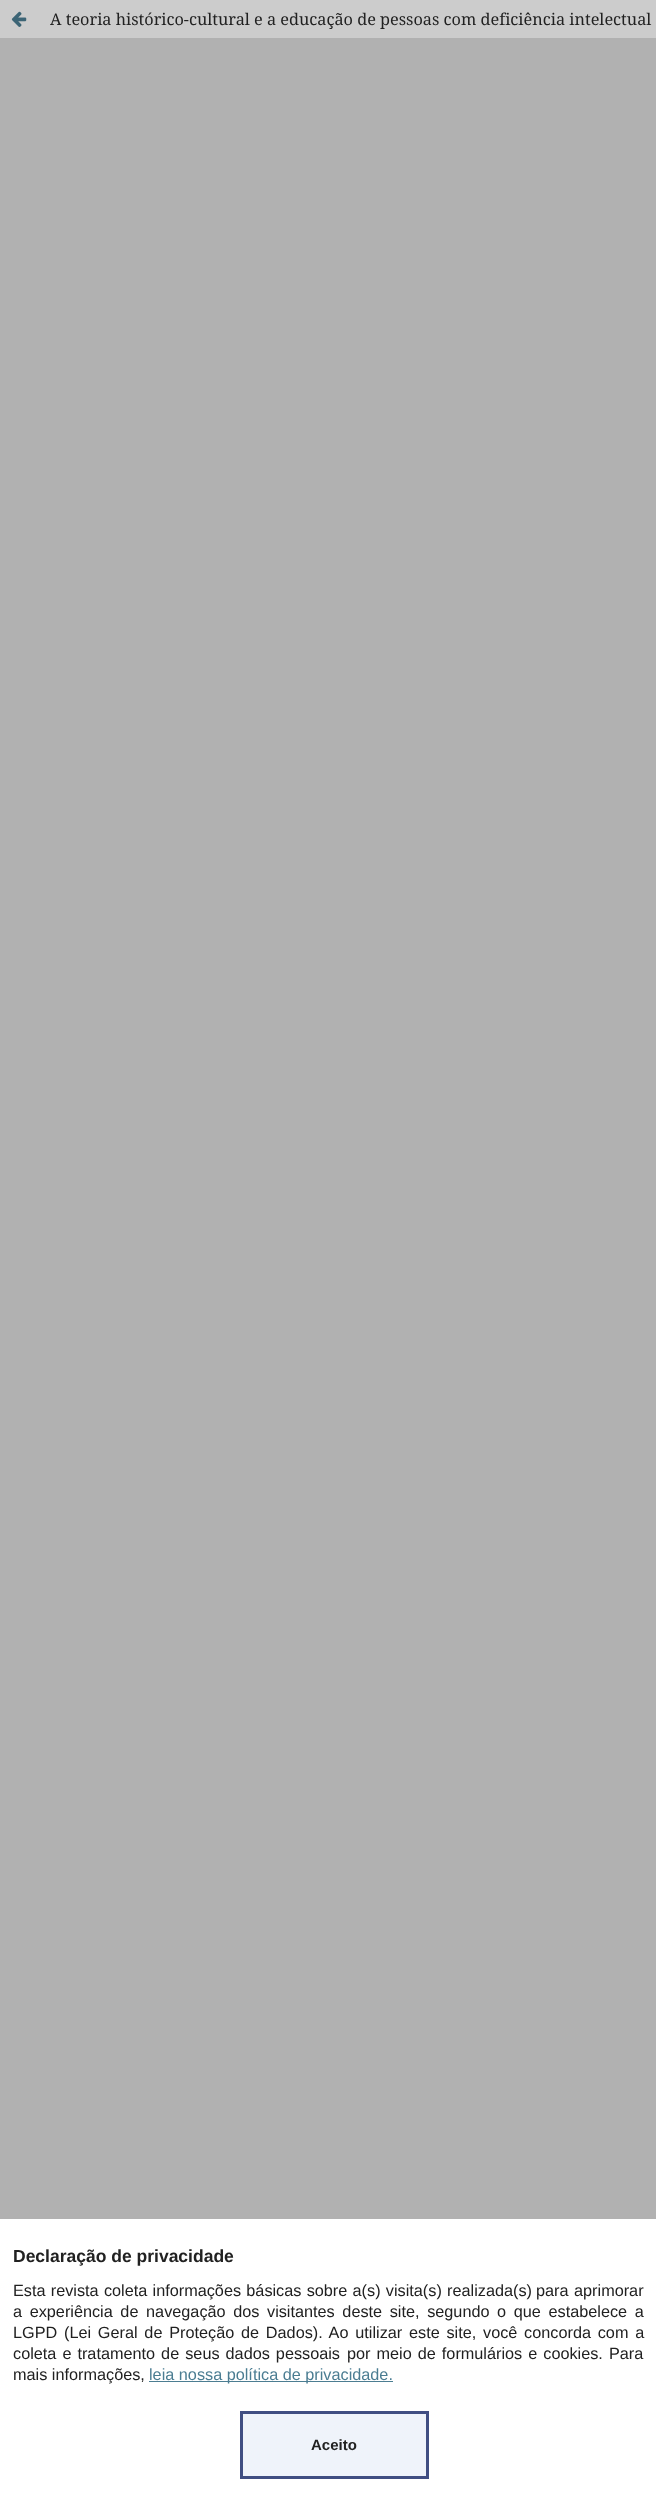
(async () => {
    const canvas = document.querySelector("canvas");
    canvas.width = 656;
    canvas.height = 2516;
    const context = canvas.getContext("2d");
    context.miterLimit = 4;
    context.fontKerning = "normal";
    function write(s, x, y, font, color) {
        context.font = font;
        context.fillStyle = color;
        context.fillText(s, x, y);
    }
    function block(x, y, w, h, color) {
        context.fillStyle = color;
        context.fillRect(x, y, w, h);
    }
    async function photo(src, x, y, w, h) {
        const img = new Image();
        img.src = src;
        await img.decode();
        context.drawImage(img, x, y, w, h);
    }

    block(0, 0, 656, 2516, "rgb(177, 177, 177)");
    block(0, 0, 656, 38, "rgb(204, 204, 204)");
    await photo("media/1.png", 11, 11, 16, 16);
    write("A teoria histórico-cultural e a educação de pessoas com deficiência intelectual", 50, 25, "16.25px Noto Serif", "rgb(33, 33, 33)");
    block(0, 2219, 656, 297, "rgb(255, 255, 255)");
    write("Declaração de privacidade", 13, 2262, "bold 17.5px Liberation Sans", "rgb(33, 33, 33)");
    context.wordSpacing = "0.75px";
    write("Esta revista coleta informações básicas sobre a(s) visita(s) realizada(s)", 13, 2296, "16.25px Liberation Sans", "rgb(33, 33, 33)");
    context.wordSpacing = "1px";
    write("para aprimorar", 536, 2296, "16.25px Liberation Sans", "rgb(33, 33, 33)");
    context.wordSpacing = "3.1px";
    write("a experiência de navegação dos visitantes deste site, segundo o que estabelece a", 13, 2317, "16.25px Liberation Sans", "rgb(33, 33, 33)");
    context.wordSpacing = "0px";
    write("LGPD", 13, 2338, "16.25px Liberation Sans", "rgb(33, 33, 33)");
    context.wordSpacing = "2.25px";
    write("(Lei Geral de Proteção de Dados). Ao utilizar este site, você concorda com a", 64, 2338, "16.25px Liberation Sans", "rgb(33, 33, 33)");
    context.wordSpacing = "1.5px";
    write("coleta e tratamento de seus dados pessoais", 13, 2359, "16.25px Liberation Sans", "rgb(33, 33, 33)");
    write("por meio de formulários e cookies. Para", 347, 2359, "16.25px Liberation Sans", "rgb(33, 33, 33)");
    context.wordSpacing = "0px";
    write("mais informações,", 13, 2380, "16.25px Liberation Sans", "rgb(33, 33, 33)");
    block(149, 2381, 244, 1, "rgb(75, 125, 146)");
    write("leia nossa política de privacidade.", 149, 2380, "16.25px Liberation Sans", "rgb(75, 125, 146)");
    context.fillStyle = "rgb(239, 243, 250)";
    context.beginPath();
    context.rect(241.5, 2412.5, 186, 65);
    context.fill();
    context.strokeStyle = "rgb(64, 78, 130)";
    context.lineWidth = 3;
    context.stroke();
    write("Aceito", 311, 2450, "bold 15px Liberation Sans", "rgb(33, 33, 33)");
})();
